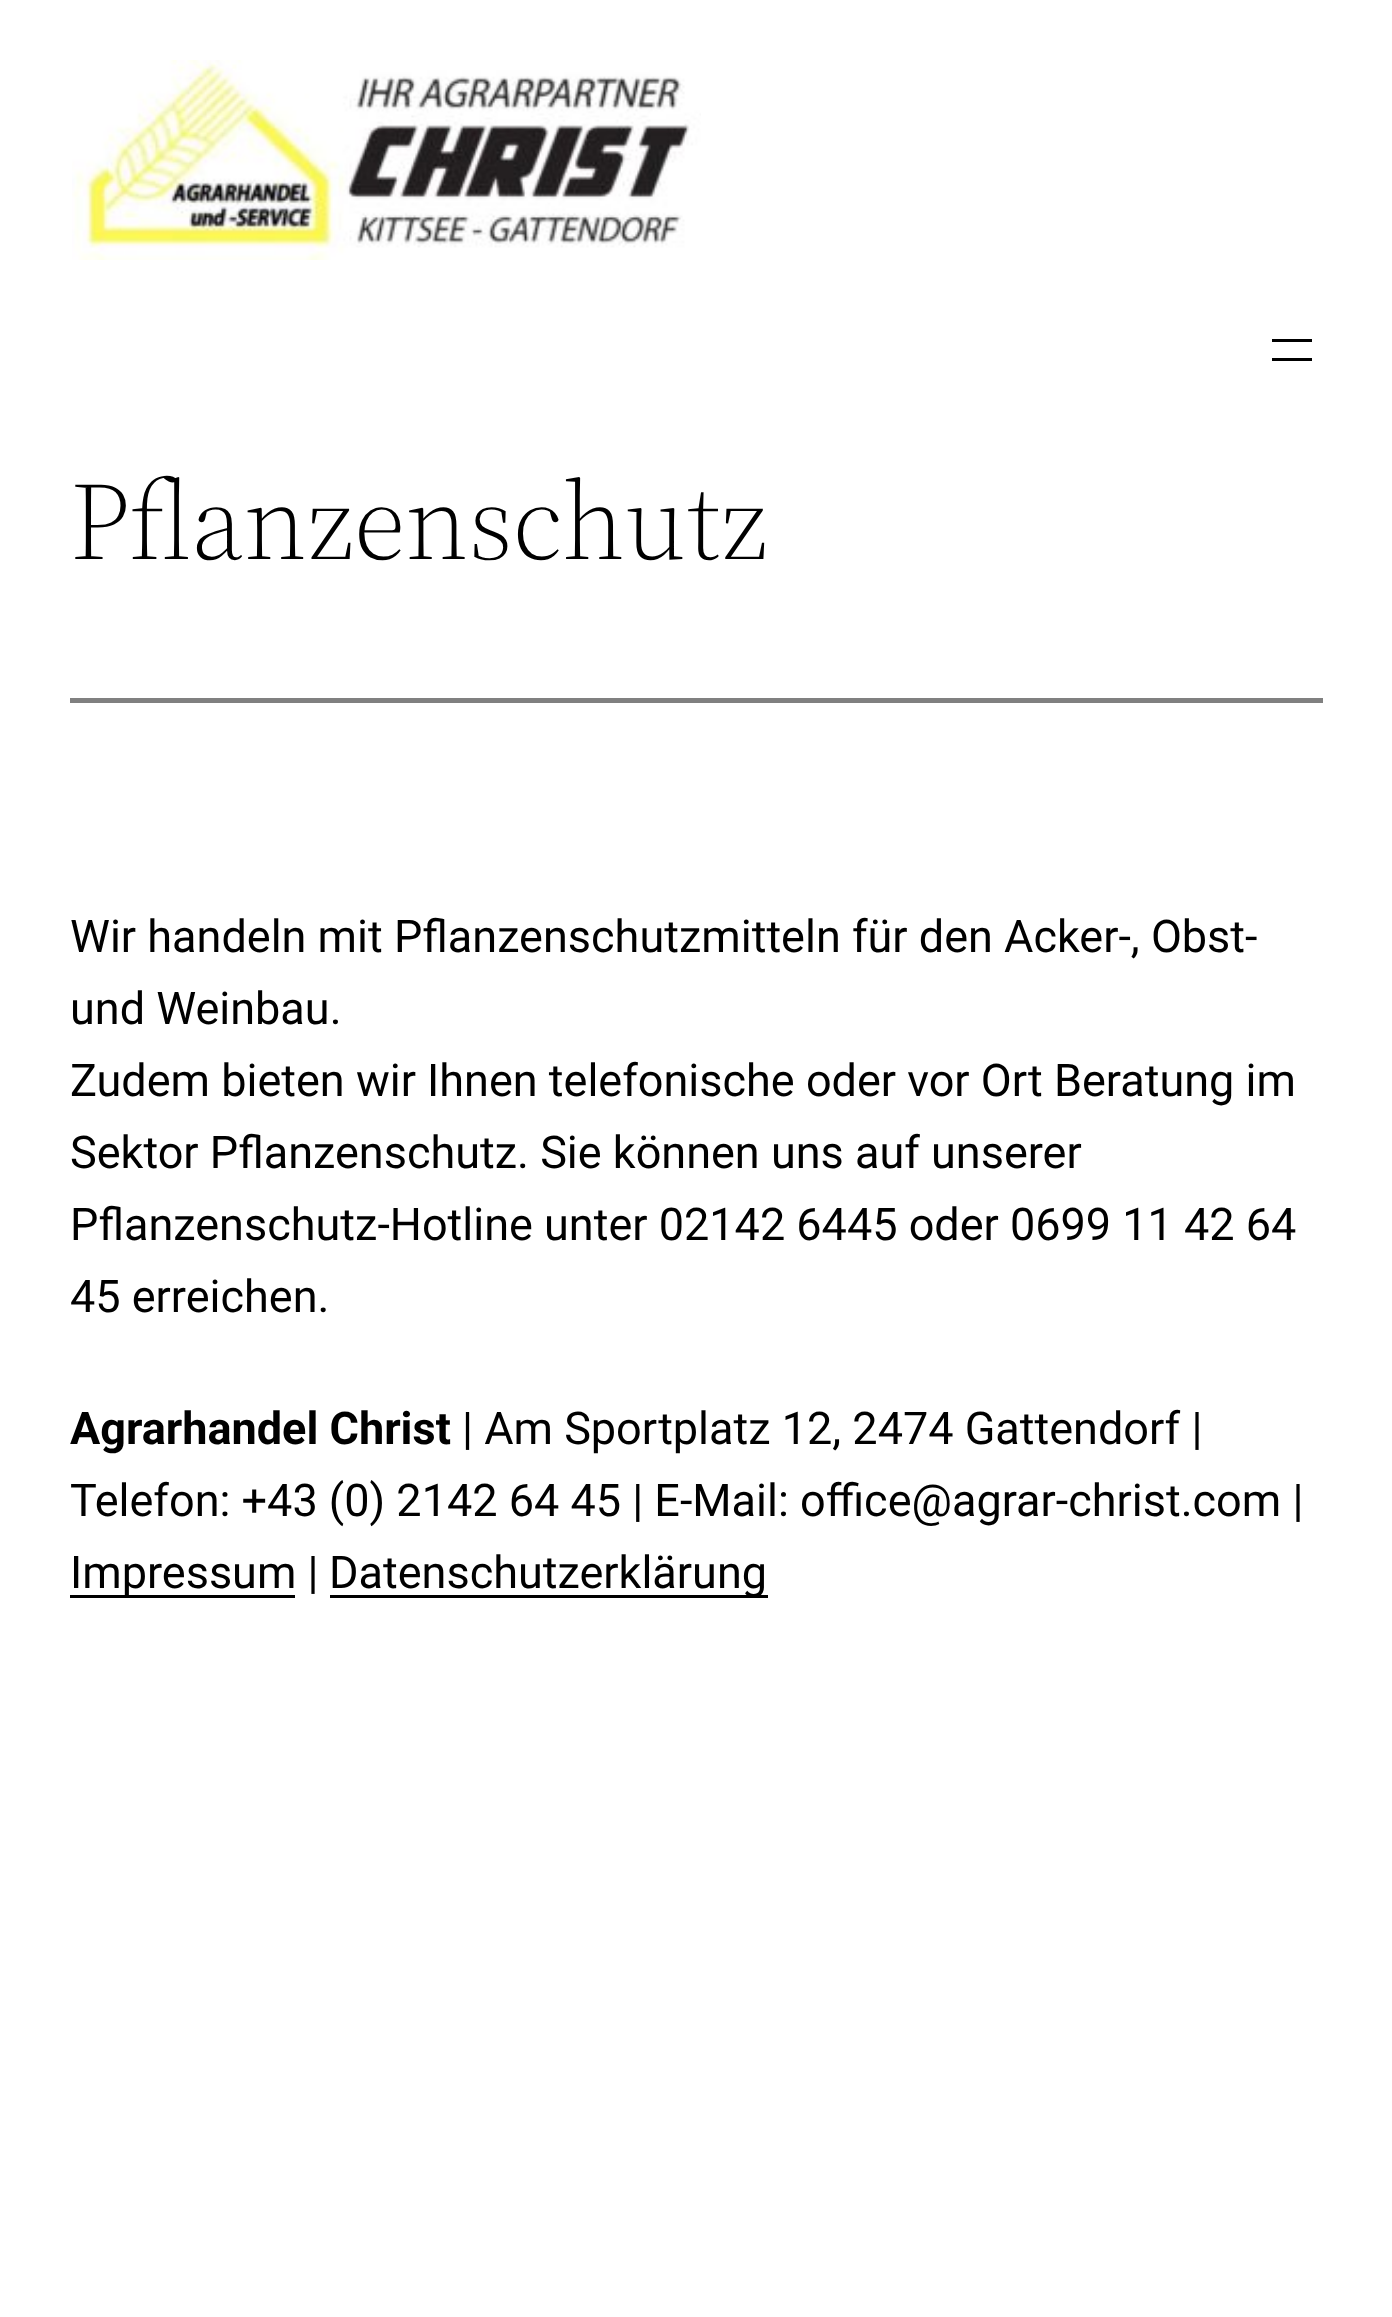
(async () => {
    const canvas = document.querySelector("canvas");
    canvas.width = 1392;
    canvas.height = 2317;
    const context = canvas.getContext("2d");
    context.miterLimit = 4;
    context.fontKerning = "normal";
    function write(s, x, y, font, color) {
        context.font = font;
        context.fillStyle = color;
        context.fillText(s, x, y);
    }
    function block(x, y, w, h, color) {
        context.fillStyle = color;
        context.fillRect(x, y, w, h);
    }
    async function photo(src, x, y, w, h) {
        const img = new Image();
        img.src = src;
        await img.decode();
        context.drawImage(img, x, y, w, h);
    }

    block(0, 0, 1392, 2317, "rgb(255, 255, 255)");
    await photo("media/1.png", 72, 60, 629, 200);
    block(1272, 339, 40, 3, "rgb(0, 0, 0)");
    block(1272, 358, 40, 3, "rgb(0, 0, 0)");
    write("Pflanzenschutz", 70, 559, "300 110px 'Source Serif 4'", "rgb(0, 0, 0)");
    block(70, 698, 1253, 5, "rgb(128, 128, 128)");
    write("Wir handeln mit Pflanzenschutzmitteln für den Acker-, Obst-", 70, 952, "45px Roboto", "rgb(0, 0, 0)");
    write("und Weinbau.", 70, 1024, "45px Roboto", "rgb(0, 0, 0)");
    write("Zudem bieten wir Ihnen telefonische oder vor Ort Beratung im", 70, 1096, "45px Roboto", "rgb(0, 0, 0)");
    write("Sektor Pflanzenschutz. Sie können uns auf unserer", 70, 1168, "45px Roboto", "rgb(0, 0, 0)");
    write("Pflanzenschutz-Hotline unter 02142 6445 oder 0699 11 42 64", 70, 1240, "45px Roboto", "rgb(0, 0, 0)");
    write("45 erreichen.", 70, 1312, "45px Roboto", "rgb(0, 0, 0)");
    write("Agrarhandel Christ", 70, 1444, "bold 45px Roboto", "rgb(0, 0, 0)");
    write("| Am Sportplatz 12, 2474 Gattendorf |", 462, 1444, "45px Roboto", "rgb(0, 0, 0)");
    write("Telefon: +43 (0) 2142 64 45 | E-Mail: office@agrar-christ.com |", 70, 1516, "45px Roboto", "rgb(0, 0, 0)");
    block(70, 1595, 225, 3, "rgb(0, 0, 0)");
    write("Impressum |", 70, 1588, "45px Roboto", "rgb(0, 0, 0)");
    block(330, 1595, 438, 3, "rgb(0, 0, 0)");
    write("Datenschutzerklärung", 329, 1588, "45px Roboto", "rgb(0, 0, 0)");
})();
